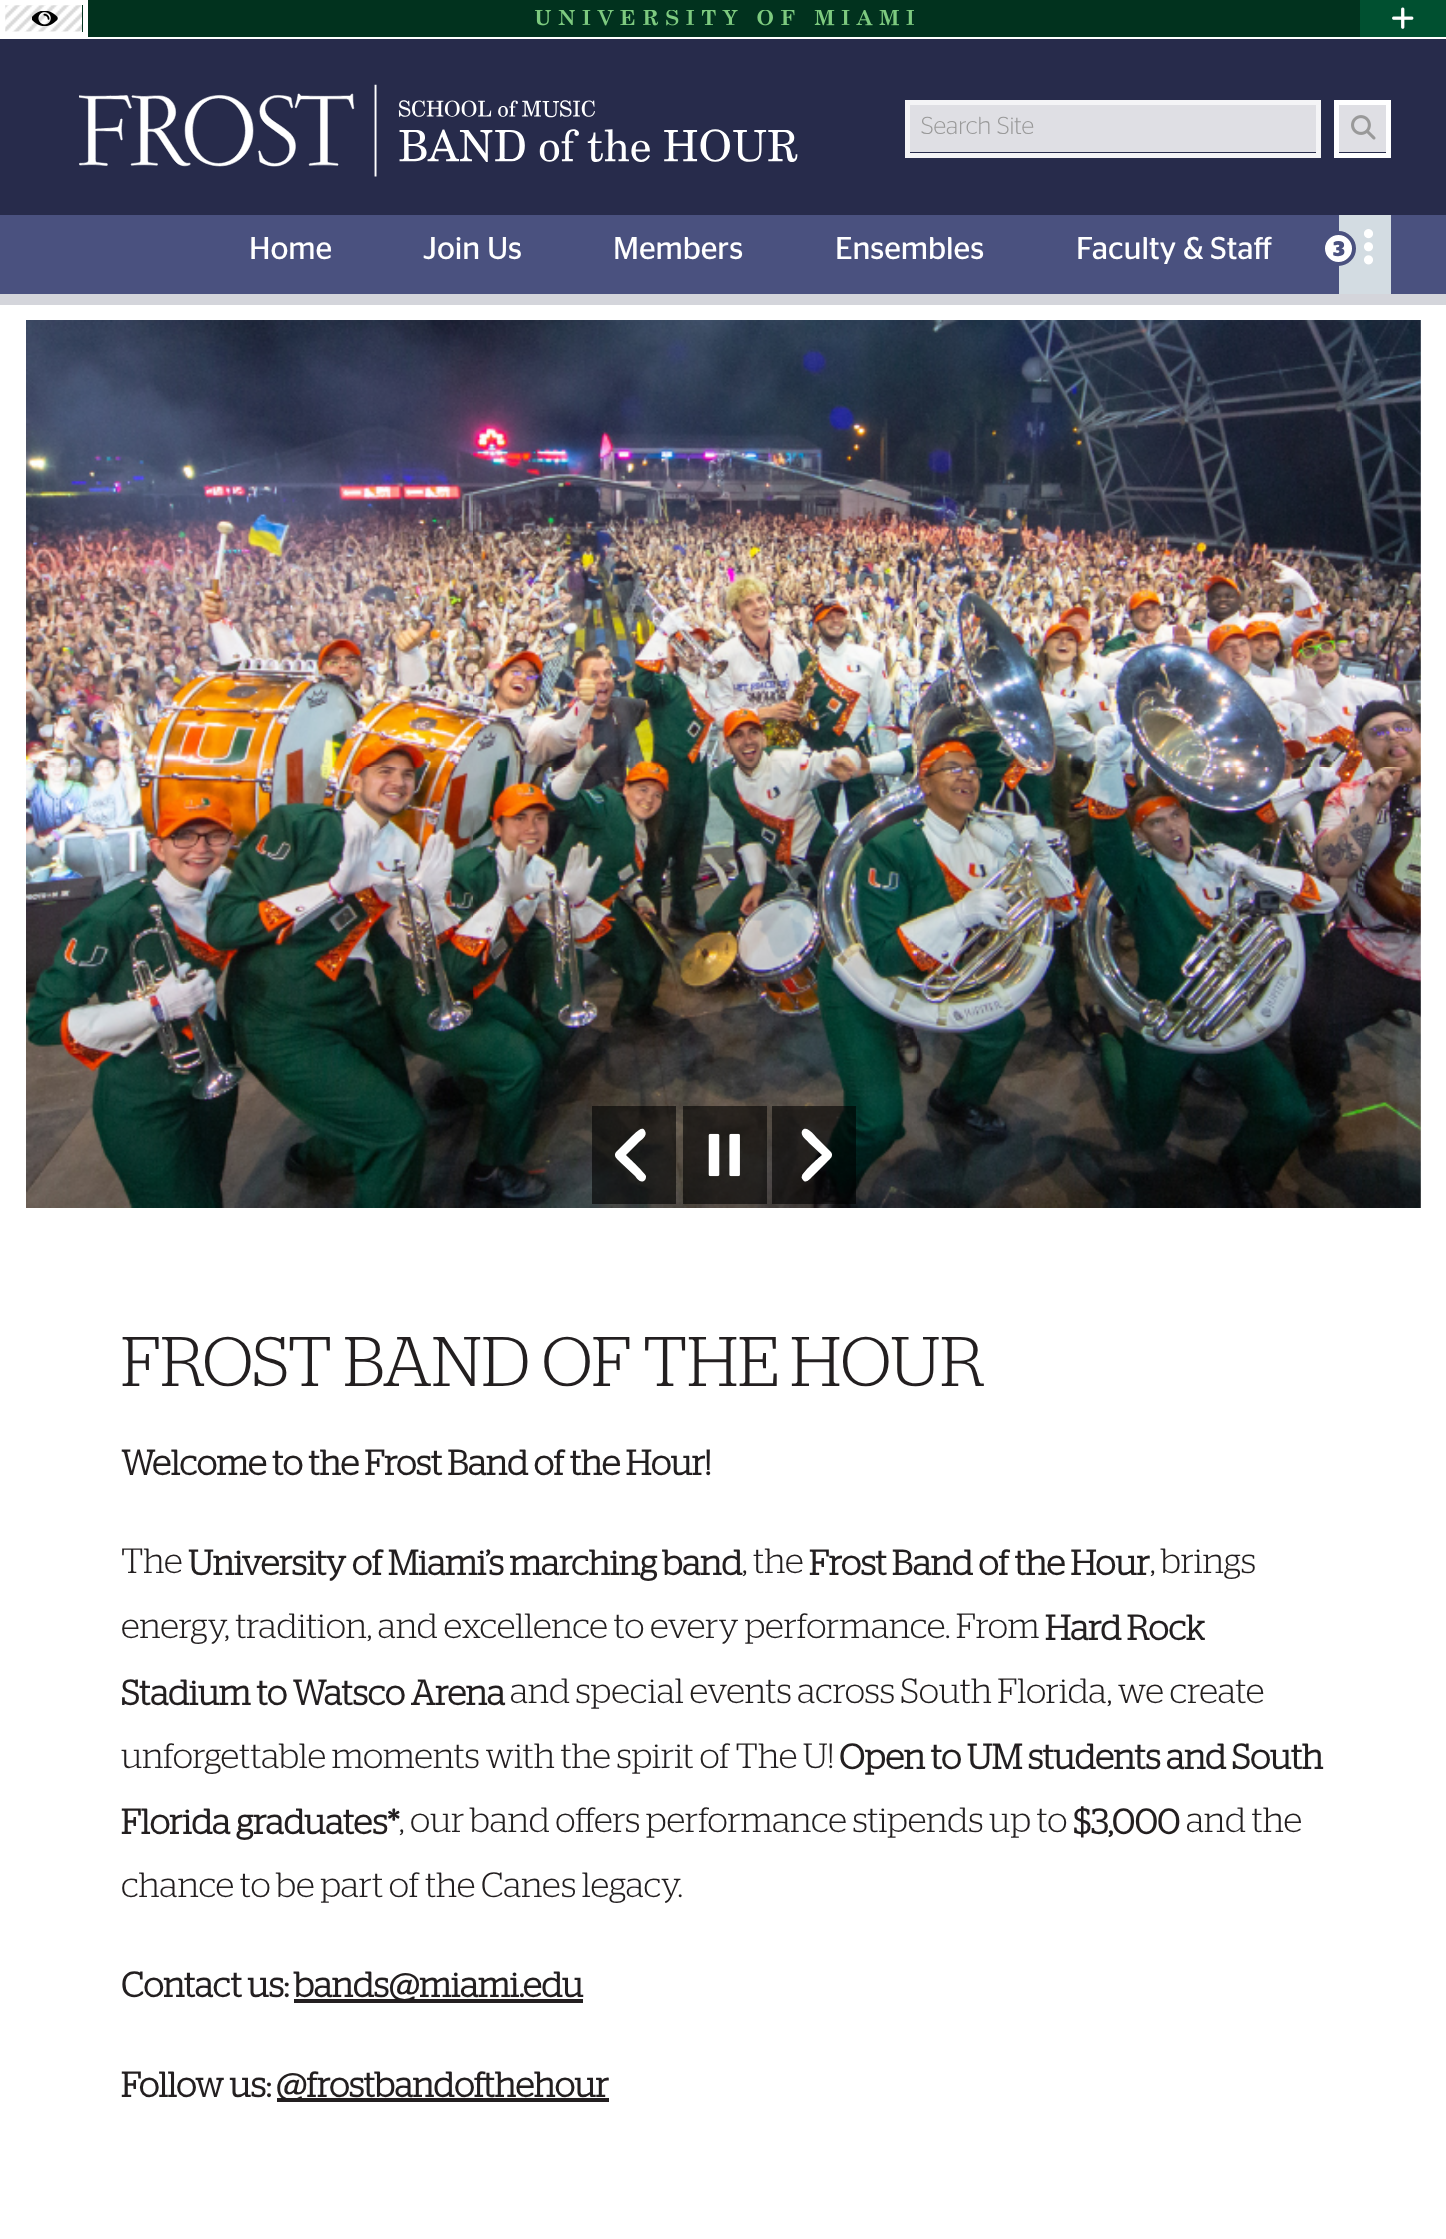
(async () => {
    const canvas = document.querySelector("canvas");
    canvas.width = 1446;
    canvas.height = 2239;
    const context = canvas.getContext("2d");
    context.miterLimit = 4;
    context.fontKerning = "normal";
    function write(s, x, y, font, color) {
        context.font = font;
        context.fillStyle = color;
        context.fillText(s, x, y);
    }
    function block(x, y, w, h, color) {
        context.fillStyle = color;
        context.fillRect(x, y, w, h);
    }
    async function photo(src, x, y, w, h) {
        const img = new Image();
        img.src = src;
        await img.decode();
        context.drawImage(img, x, y, w, h);
    }

    block(0, 0, 1446, 2239, "rgb(255, 255, 255)");
    block(82, 0, 1278, 37, "rgb(1, 50, 30)");
    await photo("media/1.png", 5, 5, 77, 27);
    context.strokeStyle = "rgb(255, 255, 255)";
    context.lineWidth = 5;
    context.strokeRect(2.5, 2.5, 83, 32);
    await photo("media/2.png", 32, 11, 26, 15);
    await photo("media/3.png", 535, 10, 379, 16);
    context.fillStyle = "rgb(0, 80, 48)";
    context.beginPath();
    context.rect(1362.5, 2.5, 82, 32);
    context.fill();
    context.strokeStyle = "rgb(0, 80, 48)";
    context.stroke();
    await photo("media/4.png", 1392, 7, 22, 22);
    block(0, 294, 1446, 11, "rgb(212, 213, 219)");
    block(0, 39, 1446, 176, "rgb(39, 43, 75)");
    await photo("media/5.png", 79, 84, 719, 93);
    block(910, 105, 406, 47, "rgb(223, 223, 228)");
    context.strokeStyle = "rgb(244, 244, 246)";
    context.strokeRect(907.5, 102.5, 411, 53);
    write("Search Site", 921, 134, "300 24.5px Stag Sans", "rgb(153, 153, 153)");
    block(1339, 105, 47, 47, "rgb(223, 223, 228)");
    context.strokeStyle = "rgb(255, 255, 255)";
    context.strokeRect(1336.5, 102.5, 52, 53);
    await photo("media/6.png", 1351, 115, 25, 25);
    block(0, 215, 1446, 79, "rgb(74, 81, 127)");
    write("Home", 249, 259, "31.5px Stag Sans", "rgb(255, 255, 255)");
    write("Join Us", 423, 259, "31.5px Stag Sans", "rgb(255, 255, 255)");
    write("Members", 613, 259, "31.5px Stag Sans", "rgb(255, 255, 255)");
    write("Ensembles", 835, 259, "31.5px Stag Sans", "rgb(255, 255, 255)");
    write("Faculty & Staff", 1076, 259, "31.5px Stag Sans", "rgb(255, 255, 255)");
    block(1339, 215, 52, 79, "rgb(211, 220, 226)");
    context.fillStyle = "rgb(255, 255, 255)";
    context.beginPath();
    context.arc(1338.5, 248.5, 15.5, 0, Math.PI * 2);
    context.fill();
    context.strokeStyle = "rgb(74, 81, 127)";
    context.lineWidth = 4;
    context.stroke();
    write("3", 1333, 256, "bold 21px Stag Sans", "rgb(74, 81, 127)");
    await photo("media/7.png", 1364, 229, 9, 36);
    await photo("media/8.png", 26, 320, 1395, 888);
    block(592, 1106, 84, 98, "rgba(0, 0, 0, 0.6)");
    context.fillStyle = "rgb(255, 255, 255)";
    context.beginPath();
    context.moveTo(616, 1152);
    context.bezierCurveTo(613, 1156, 617, 1159, 620, 1162);
    context.lineTo(635, 1176);
    context.bezierCurveTo(637, 1179, 641, 1184, 645, 1180);
    context.bezierCurveTo(646, 1179, 646, 1177, 646, 1176);
    context.bezierCurveTo(645, 1173, 629, 1158, 626, 1155);
    context.lineTo(638, 1143);
    context.bezierCurveTo(641, 1140, 648, 1136, 645, 1131);
    context.bezierCurveTo(642, 1124, 633, 1136, 631, 1137);
    context.closePath();
    context.fill();
    block(683, 1106, 84, 98, "rgba(0, 0, 0, 0.6)");
    await photo("media/9.png", 708, 1133, 32, 44);
    block(772, 1106, 84, 98, "rgba(0, 0, 0, 0.6)");
    context.fillStyle = "rgb(255, 255, 255)";
    context.beginPath();
    context.moveTo(831, 1152);
    context.bezierCurveTo(834, 1156, 830, 1159, 827, 1162);
    context.lineTo(813, 1176);
    context.bezierCurveTo(810, 1179, 806, 1184, 803, 1180);
    context.bezierCurveTo(802, 1179, 801, 1177, 802, 1176);
    context.bezierCurveTo(802, 1173, 818, 1158, 822, 1155);
    context.lineTo(809, 1143);
    context.bezierCurveTo(807, 1140, 800, 1136, 802, 1131);
    context.bezierCurveTo(806, 1124, 815, 1136, 816, 1137);
    context.closePath();
    context.fill();
    write("FROST BAND OF THE HOUR", 121, 1386, "300 70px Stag", "rgb(35, 31, 32)");
    write("Welcome to the Frost Band of the Hour!", 121, 1475, "bold 35px Stag", "rgb(35, 31, 32)");
    write("The", 121, 1573, "300 35px Stag", "rgb(35, 31, 32)");
    write("University of Miami’s marching band", 188, 1575, "bold 35px Stag", "rgb(35, 31, 32)");
    write(", the", 742, 1573, "300 35px Stag", "rgb(35, 31, 32)");
    write("Frost Band of the Hour", 809, 1575, "bold 35px Stag", "rgb(35, 31, 32)");
    write(", brings", 1150, 1573, "300 35px Stag", "rgb(35, 31, 32)");
    write("energy, tradition, and excellence to every performance. From", 121, 1638, "300 35px Stag", "rgb(35, 31, 32)");
    write("Hard Rock", 1045, 1640, "bold 35px Stag", "rgb(35, 31, 32)");
    write("Stadium to Watsco Arena", 121, 1705, "bold 35px Stag", "rgb(35, 31, 32)");
    write("and special events across South Florida, we create", 510, 1703, "300 35px Stag", "rgb(35, 31, 32)");
    write("unforgettable moments with the spirit of The U!", 121, 1768, "300 35px Stag", "rgb(35, 31, 32)");
    write("Open to UM students and South", 839, 1769, "bold 35px Stag", "rgb(35, 31, 32)");
    write("Florida graduates*", 121, 1834, "bold 35px Stag", "rgb(35, 31, 32)");
    write(", our band offers performance stipends up to", 399, 1832, "300 35px Stag", "rgb(35, 31, 32)");
    write("$3,000", 1073, 1834, "bold 35px Stag", "rgb(35, 31, 32)");
    write("and the", 1186, 1832, "300 35px Stag", "rgb(35, 31, 32)");
    write("chance to be part of the Canes legacy.", 121, 1897, "300 35px Stag", "rgb(35, 31, 32)");
    write("Contact us:", 121, 1997, "bold 35px Stag", "rgb(35, 31, 32)");
    block(294, 1999, 289, 4, "rgb(35, 31, 32)");
    write("bands@miami.edu", 294, 1997, "bold 35px Stag", "rgb(35, 31, 32)");
    write("Follow us:", 121, 2097, "bold 35px Stag", "rgb(35, 31, 32)");
    block(277, 2098, 332, 4, "rgb(35, 31, 32)");
    write("@frostbandofthehour", 276, 2097, "bold 35px Stag", "rgb(35, 31, 32)");
})();
